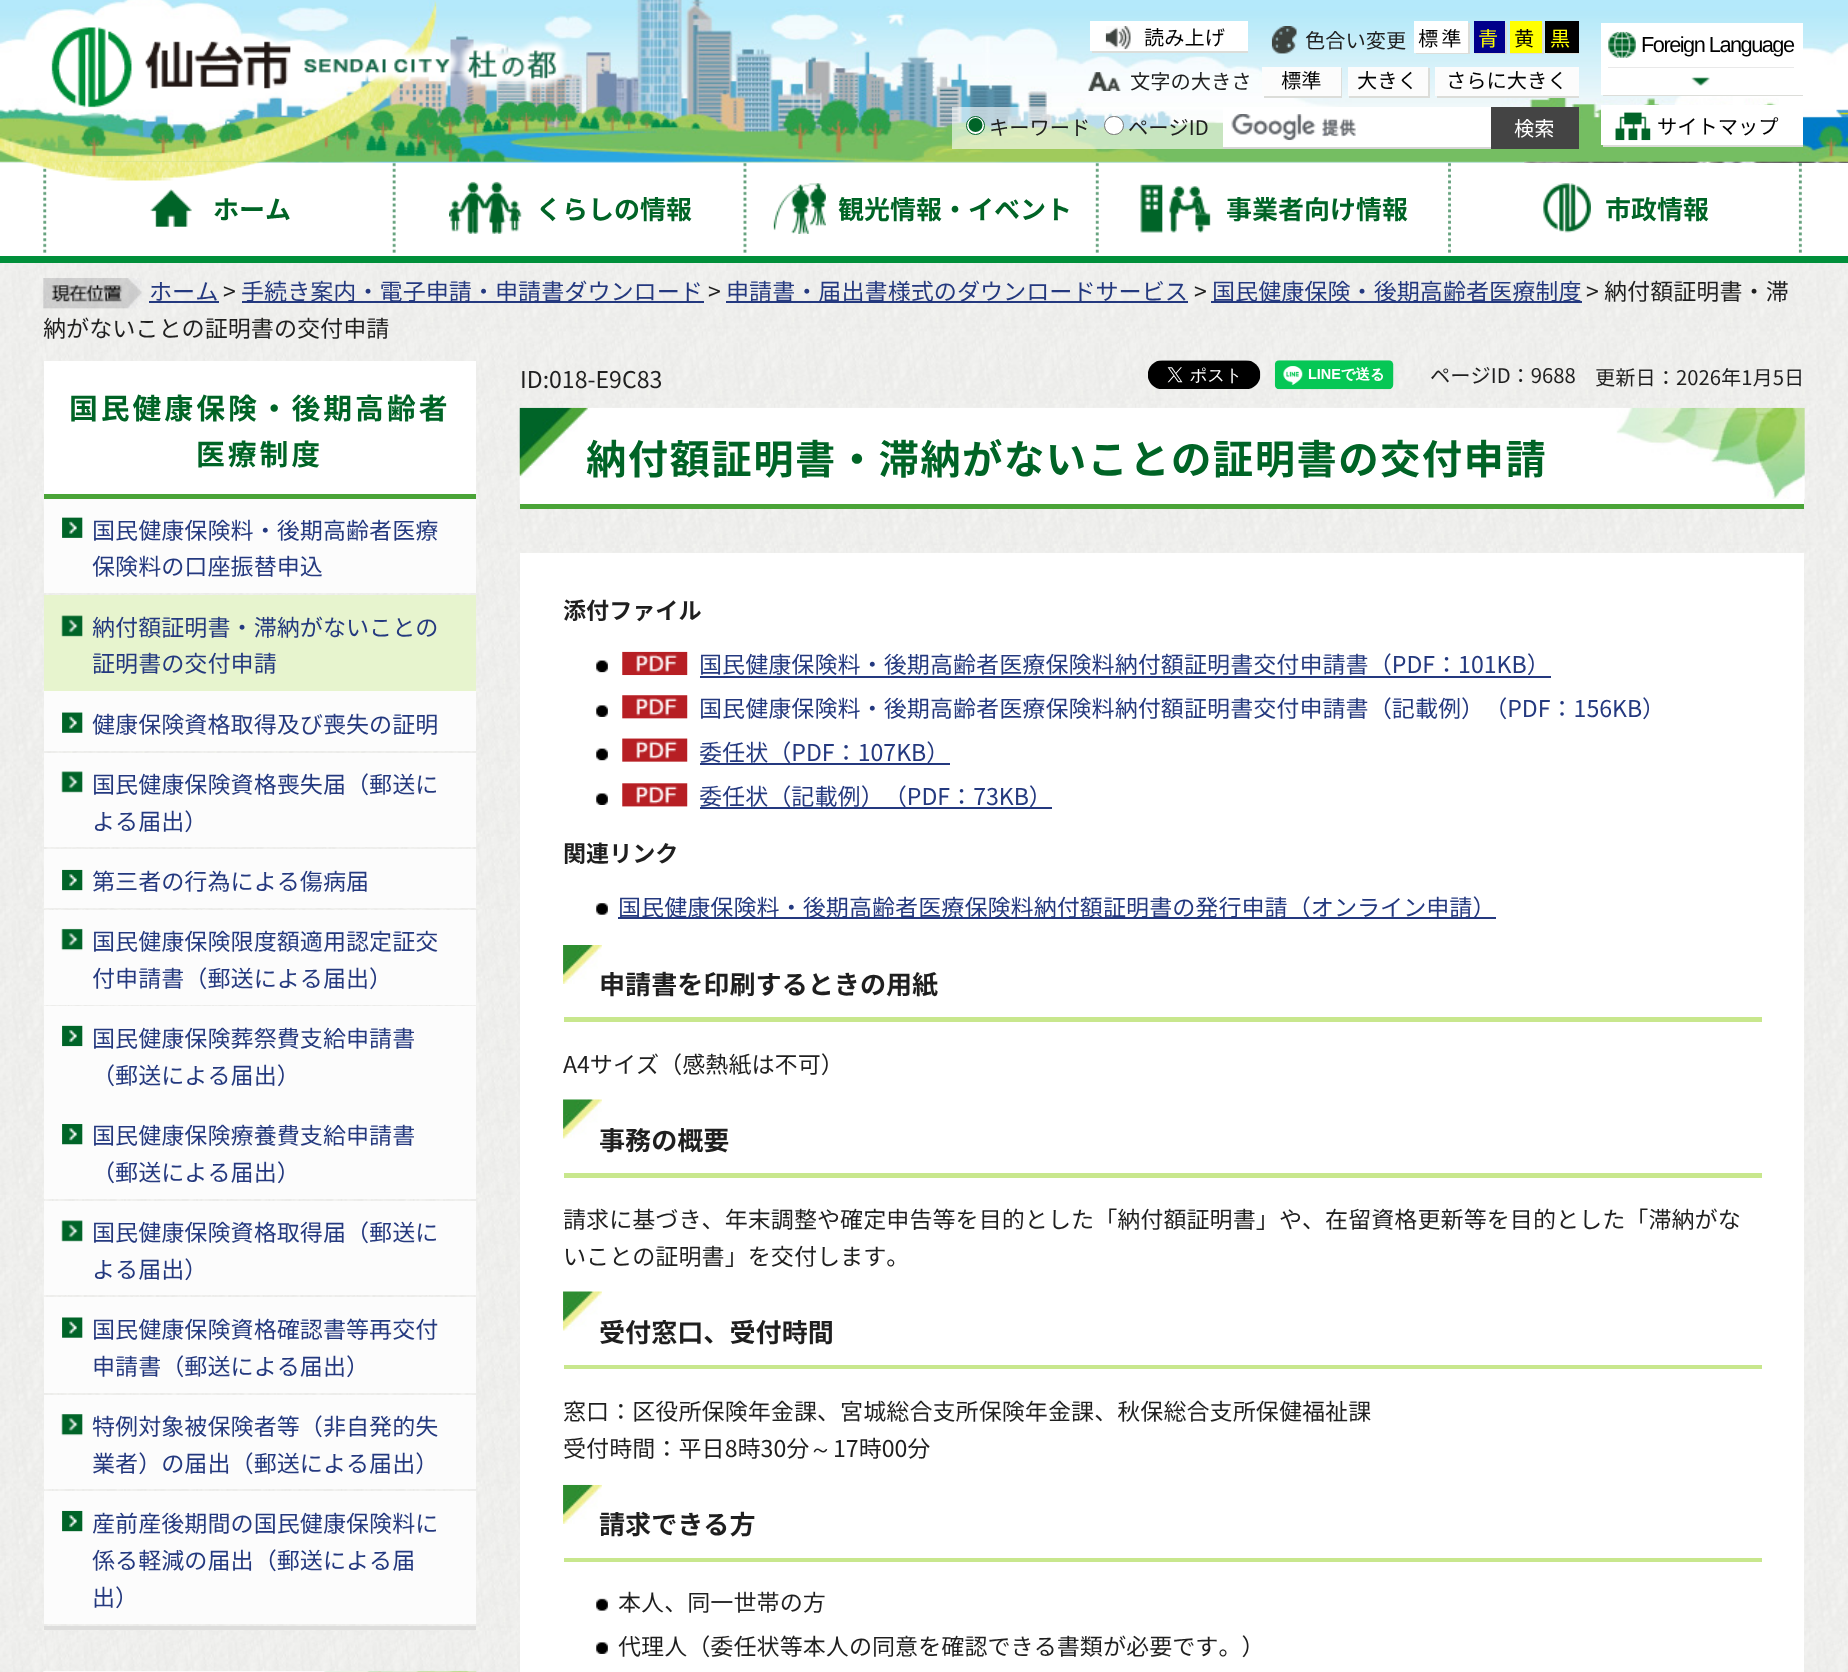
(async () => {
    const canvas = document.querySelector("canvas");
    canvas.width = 1848;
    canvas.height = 1672;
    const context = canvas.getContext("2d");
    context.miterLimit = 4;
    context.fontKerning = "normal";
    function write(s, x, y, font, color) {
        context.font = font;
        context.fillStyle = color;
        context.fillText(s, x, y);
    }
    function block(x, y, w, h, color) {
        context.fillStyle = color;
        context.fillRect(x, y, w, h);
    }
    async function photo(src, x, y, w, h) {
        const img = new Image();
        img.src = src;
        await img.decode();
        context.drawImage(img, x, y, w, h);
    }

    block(0, 0, 1848, 1672, "rgb(255, 255, 255)");
    block(0, 161, 1524, 2, "rgb(212, 240, 251)");
    await photo("media/23.png", 1524, 161, 324, 2);
    await photo("media/1.png", 0, 161, 1525, 2);
    await photo("media/2.png", 0, 0, 1848, 162);
    await photo("media/3.png", 51, 27, 516, 92);
    context.fillStyle = "rgb(220, 221, 217)";
    context.filter = "blur(0.5px)";
    context.beginPath();
    context.rect(1092, 23, 156, 30);
    context.fill();
    context.filter = "none";
    block(1090, 21, 158, 30, "rgb(255, 255, 255)");
    await photo("media/4.png", 1105, 26, 26, 24);
    write("読み上げ", 1144, 45, "20.25px Noto Sans JP", "rgb(0, 0, 0)");
    await photo("media/5.png", 1271, 26, 26, 28);
    write("色合い変更", 1305, 48, "20.25px Noto Sans JP", "rgb(31, 31, 31)");
    context.fillStyle = "rgb(220, 221, 217)";
    context.filter = "blur(0.5px)";
    context.beginPath();
    context.rect(1416, 23, 54, 31);
    context.fill();
    context.filter = "none";
    block(1414, 21, 54, 32, "rgb(255, 255, 255)");
    context.letterSpacing = "2.9px";
    write("標準", 1418, 46, "20.25px Noto Sans JP", "rgb(0, 0, 0)");
    context.fillStyle = "rgb(220, 221, 217)";
    context.filter = "blur(0.5px)";
    context.beginPath();
    context.rect(1475, 23, 32, 31);
    context.fill();
    context.filter = "none";
    block(1474, 21, 31, 32, "rgb(0, 0, 139)");
    write("青", 1478, 46, "20.25px Noto Sans JP", "rgb(255, 255, 0)");
    context.fillStyle = "rgb(220, 221, 217)";
    context.filter = "blur(0.5px)";
    context.beginPath();
    context.rect(1510, 23, 34, 31);
    context.fill();
    context.filter = "none";
    block(1510, 21, 32, 32, "rgb(255, 255, 0)");
    write("黄", 1514, 46, "20.25px Noto Sans JP", "rgb(0, 0, 0)");
    context.fillStyle = "rgb(220, 221, 217)";
    context.filter = "blur(0.5px)";
    context.beginPath();
    context.rect(1547, 23, 32, 31);
    context.fill();
    context.filter = "none";
    block(1545, 21, 34, 32, "rgb(0, 0, 0)");
    write("黒", 1550, 46, "20.25px Noto Sans JP", "rgb(255, 255, 0)");
    await photo("media/6.png", 1088, 72, 33, 19);
    context.letterSpacing = "0px";
    write("文字の大きさ", 1130, 89, "20.25px Noto Sans JP", "rgb(31, 31, 31)");
    context.fillStyle = "rgb(220, 221, 217)";
    context.filter = "blur(0.5px)";
    context.beginPath();
    context.rect(1264, 68, 78, 30);
    context.fill();
    context.filter = "none";
    block(1262, 67, 79, 29, "rgb(252, 252, 252)");
    write("標準", 1281, 88, "20.25px Noto Sans JP", "rgb(0, 0, 0)");
    context.fillStyle = "rgb(220, 221, 217)";
    context.filter = "blur(0.5px)";
    context.beginPath();
    context.rect(1349, 68, 81, 30);
    context.fill();
    context.filter = "none";
    block(1348, 67, 80, 29, "rgb(252, 252, 252)");
    write("大きく", 1357, 88, "20.25px Noto Sans JP", "rgb(0, 0, 0)");
    context.fillStyle = "rgb(220, 221, 217)";
    context.filter = "blur(0.5px)";
    context.beginPath();
    context.rect(1437, 68, 142, 30);
    context.fill();
    context.filter = "none";
    block(1435, 67, 144, 29, "rgb(252, 252, 252)");
    write("さらに大きく", 1446, 88, "20.25px Noto Sans JP", "rgb(0, 0, 0)");
    block(952, 107, 271, 42, "rgba(255, 255, 255, 0.6)");
    context.fillStyle = "rgb(255, 255, 255)";
    context.beginPath();
    context.arc(975.5, 125.5, 9, 0, Math.PI * 2);
    context.fill();
    context.strokeStyle = "rgb(0, 100, 40)";
    context.stroke();
    context.fillStyle = "rgb(0, 100, 40)";
    context.beginPath();
    context.arc(975.5, 125, 7, 0, Math.PI * 2);
    context.fill();
    write("キーワード", 989, 135, "20.25px Noto Sans JP", "rgb(31, 31, 31)");
    context.fillStyle = "rgb(255, 255, 255)";
    context.beginPath();
    context.roundRect(1104.5, 116.5, 19, 18, 9);
    context.fill();
    context.strokeStyle = "rgb(118, 118, 118)";
    context.stroke();
    write("ページID", 1128, 135, "20.25px Noto Sans JP", "rgb(31, 31, 31)");
    block(1223, 107, 268, 40, "rgb(255, 255, 255)");
    await photo("media/7.png", 1231, 114, 125, 27);
    block(1223, 147, 268, 2, "rgb(214, 214, 214)");
    block(1491, 107, 88, 42, "rgb(68, 68, 68)");
    write("検索", 1514, 136, "20.25px Noto Sans JP", "rgb(255, 255, 255)");
    context.fillStyle = "rgb(220, 221, 217)";
    context.filter = "blur(0.5px)";
    context.beginPath();
    context.rect(1603, 25, 200, 71);
    context.fill();
    context.filter = "none";
    block(1601, 23, 202, 72, "rgb(255, 255, 255)");
    await photo("media/8.png", 1608, 31, 28, 27);
    context.letterSpacing = "-1.5px";
    write("Foreign Language", 1641, 52, "21.75px Liberation Sans", "rgb(0, 0, 0)");
    block(1608, 67, 186, 1, "rgb(233, 233, 233)");
    await photo("media/9.png", 1691, 77, 19, 9);
    context.fillStyle = "rgb(220, 221, 217)";
    context.filter = "blur(0.5px)";
    context.beginPath();
    context.rect(1603, 107, 200, 40);
    context.fill();
    context.filter = "none";
    block(1601, 105, 202, 40, "rgb(255, 255, 255)");
    await photo("media/10.png", 1615, 112, 36, 29);
    context.letterSpacing = "0px";
    write("サイトマップ", 1657, 134, "20.25px Noto Sans JP", "rgb(0, 0, 0)");
    block(0, 256, 1848, 7, "rgb(0, 143, 58)");
    await photo("media/12.png", 43, 165, 4, 88);
    await photo("media/11.png", 27, 161, 234, 20);
    await photo("media/13.png", 392, 162, 4, 91);
    await photo("media/14.png", 150, 189, 42, 38);
    write("ホーム", 213, 219, "bold 26px Noto Sans JP", "rgb(0, 100, 38)");
    await photo("media/15.png", 743, 162, 4, 91);
    await photo("media/16.png", 449, 181, 73, 53);
    write("くらしの情報", 536, 219, "bold 26px Noto Sans JP", "rgb(0, 100, 38)");
    await photo("media/17.png", 1095, 162, 4, 91);
    await photo("media/18.png", 773, 183, 53, 51);
    write("観光情報・イベント", 838, 219, "bold 26px Noto Sans JP", "rgb(0, 100, 38)");
    await photo("media/19.png", 1448, 162, 3, 91);
    await photo("media/20.png", 1140, 184, 71, 49);
    write("事業者向け情報", 1226, 219, "bold 26px Noto Sans JP", "rgb(0, 100, 38)");
    await photo("media/21.png", 1798, 163, 4, 90);
    await photo("media/22.png", 1543, 183, 48, 50);
    write("市政情報", 1605, 219, "bold 26px Noto Sans JP", "rgb(0, 100, 38)");
    await photo("media/24.png", 0, 263, 1848, 1409);
    await photo("media/25.png", 43, 278, 99, 31);
    write("ホーム", 149, 300, "23.1px Noto Sans JP", "rgb(36, 57, 127)");
    block(149, 301, 70, 2, "rgb(36, 57, 127)");
    write(">", 223, 300, "23.1px Noto Sans JP", "rgb(31, 31, 31)");
    block(242, 301, 462, 2, "rgb(36, 57, 127)");
    write("手続き案内・電子申請・申請書ダウンロード", 241, 300, "23.1px Noto Sans JP", "rgb(36, 57, 127)");
    write(">", 708, 300, "23.1px Noto Sans JP", "rgb(31, 31, 31)");
    block(726, 301, 462, 2, "rgb(36, 57, 127)");
    write("申請書・届出書様式のダウンロードサービス", 726, 300, "23.1px Noto Sans JP", "rgb(36, 57, 127)");
    write(">", 1194, 300, "23.1px Noto Sans JP", "rgb(31, 31, 31)");
    block(1211, 301, 371, 2, "rgb(36, 57, 127)");
    write("国民健康保険・後期高齢者医療制度", 1212, 300, "23.1px Noto Sans JP", "rgb(36, 57, 127)");
    write("> 納付額証明書・滞", 1586, 300, "23.1px Noto Sans JP", "rgb(31, 31, 31)");
    write("納がないことの証明書の交付申請", 43, 337, "23.1px Noto Sans JP", "rgb(31, 31, 31)");
    block(44, 1626, 432, 4, "rgb(221, 221, 220)");
    block(44, 361, 432, 133, "rgb(255, 255, 255)");
    block(44, 494, 432, 5, "rgb(74, 164, 55)");
    context.letterSpacing = "2.9px";
    write("国民健康保険・後期高齢者", 69, 419, "bold 28.9px Noto Sans JP", "rgb(0, 100, 38)");
    write("医療制度", 196, 465, "bold 28.9px Noto Sans JP", "rgb(0, 100, 38)");
    block(44, 499, 432, 94, "rgb(252, 252, 252)");
    await photo("media/26.png", 62, 517, 21, 21);
    context.letterSpacing = "0px";
    write("国民健康保険料・後期高齢者医療", 92, 539, "23.1px Noto Sans JP", "rgb(36, 57, 127)");
    write("保険料の口座振替申込", 92, 575, "23.1px Noto Sans JP", "rgb(36, 57, 127)");
    block(44, 595, 432, 96, "rgb(231, 244, 206)");
    await photo("media/27.png", 61, 615, 22, 22);
    write("納付額証明書・滞納がないことの", 92, 636, "23.1px Noto Sans JP", "rgb(36, 57, 127)");
    write("証明書の交付申請", 92, 672, "23.1px Noto Sans JP", "rgb(36, 57, 127)");
    block(44, 691, 432, 60, "rgb(252, 252, 252)");
    await photo("media/28.png", 62, 712, 21, 21);
    write("健康保険資格取得及び喪失の証明", 92, 733, "23.1px Noto Sans JP", "rgb(36, 57, 127)");
    block(44, 753, 432, 94, "rgb(252, 252, 252)");
    await photo("media/29.png", 61, 771, 22, 22);
    write("国民健康保険資格喪失届（郵送に", 92, 793, "23.1px Noto Sans JP", "rgb(36, 57, 127)");
    write("よる届出）", 92, 830, "23.1px Noto Sans JP", "rgb(36, 57, 127)");
    block(44, 849, 432, 59, "rgb(252, 252, 252)");
    await photo("media/30.png", 62, 869, 21, 22);
    write("第三者の行為による傷病届", 92, 890, "23.1px Noto Sans JP", "rgb(36, 57, 127)");
    block(44, 910, 432, 95, "rgb(252, 252, 252)");
    await photo("media/31.png", 61, 928, 22, 23);
    write("国民健康保険限度額適用認定証交", 92, 950, "23.1px Noto Sans JP", "rgb(36, 57, 127)");
    write("付申請書（郵送による届出）", 92, 987, "23.1px Noto Sans JP", "rgb(36, 57, 127)");
    block(44, 1006, 432, 193, "rgb(252, 252, 252)");
    await photo("media/32.png", 62, 1025, 21, 22);
    write("国民健康保険葬祭費支給申請書", 92, 1047, "23.1px Noto Sans JP", "rgb(36, 57, 127)");
    write("（郵送による届出）", 92, 1084, "23.1px Noto Sans JP", "rgb(36, 57, 127)");
    await photo("media/33.png", 62, 1124, 21, 21);
    write("国民健康保険療養費支給申請書", 92, 1144, "23.1px Noto Sans JP", "rgb(36, 57, 127)");
    write("（郵送による届出）", 92, 1181, "23.1px Noto Sans JP", "rgb(36, 57, 127)");
    block(44, 1201, 432, 94, "rgb(252, 252, 252)");
    await photo("media/34.png", 61, 1220, 22, 22);
    write("国民健康保険資格取得届（郵送に", 92, 1241, "23.1px Noto Sans JP", "rgb(36, 57, 127)");
    write("よる届出）", 92, 1278, "23.1px Noto Sans JP", "rgb(36, 57, 127)");
    block(44, 1297, 432, 96, "rgb(252, 252, 252)");
    await photo("media/35.png", 62, 1317, 21, 21);
    write("国民健康保険資格確認書等再交付", 92, 1338, "23.1px Noto Sans JP", "rgb(36, 57, 127)");
    write("申請書（郵送による届出）", 92, 1375, "23.1px Noto Sans JP", "rgb(36, 57, 127)");
    block(44, 1395, 432, 94, "rgb(252, 252, 252)");
    await photo("media/36.png", 61, 1414, 22, 22);
    write("特例対象被保険者等（非自発的失", 92, 1435, "23.1px Noto Sans JP", "rgb(36, 57, 127)");
    write("業者）の届出（郵送による届出）", 92, 1472, "23.1px Noto Sans JP", "rgb(36, 57, 127)");
    block(44, 1491, 432, 133, "rgb(252, 252, 252)");
    await photo("media/37.png", 62, 1510, 21, 22);
    write("産前産後期間の国民健康保険料に", 92, 1532, "23.1px Noto Sans JP", "rgb(36, 57, 127)");
    write("係る軽減の届出（郵送による届", 92, 1569, "23.1px Noto Sans JP", "rgb(36, 57, 127)");
    write("出）", 92, 1606, "23.1px Noto Sans JP", "rgb(36, 57, 127)");
    await photo("media/38.png", 43, 1671, 434, 1);
    await photo("media/39.png", 324, 1671, 153, 1);
    write("ID:018-E9C83", 520, 388, "23.1px Noto Sans JP", "rgb(31, 31, 31)");
    await photo("media/40.png", 1148, 360, 113, 29);
    await photo("media/41.png", 1274, 360, 120, 30);
    write("ページID：9688", 1430, 383, "20.25px Noto Sans JP", "rgb(31, 31, 31)");
    write("更新日：2026年1月5日", 1595, 385, "20.25px Noto Sans JP", "rgb(31, 31, 31)");
    block(520, 498, 1284, 6, "rgb(255, 255, 255)");
    await photo("media/42.png", 519, 407, 1286, 92);
    block(520, 504, 1284, 5, "rgb(74, 164, 55)");
    context.letterSpacing = "1.4px";
    write("納付額証明書・滞納がないことの証明書の交付申請", 586, 474, "bold 40.4px Noto Sans JP", "rgb(0, 100, 38)");
    block(520, 553, 1284, 1119, "rgb(255, 255, 255)");
    context.letterSpacing = "0px";
    write("添付ファイル", 563, 619, "bold 23.1px Noto Sans JP", "rgb(31, 31, 31)");
    await photo("media/43.png", 596, 660, 12, 13);
    await photo("media/44.png", 622, 651, 66, 25);
    write("国民健康保険料・後期高齢者医療保険料納付額証明書交付申請書（PDF：101KB）", 699, 673, "23.1px Noto Sans JP", "rgb(36, 57, 127)");
    block(700, 676, 851, 2, "rgb(36, 57, 127)");
    await photo("media/45.png", 596, 705, 12, 12);
    await photo("media/46.png", 622, 695, 66, 24);
    write("国民健康保険料・後期高齢者医療保険料納付額証明書交付申請書（記載例）（PDF：156KB）", 699, 717, "23.1px Noto Sans JP", "rgb(36, 57, 127)");
    await photo("media/47.png", 596, 748, 12, 13);
    await photo("media/48.png", 622, 738, 66, 24);
    block(700, 763, 250, 2, "rgb(36, 57, 127)");
    write("委任状（PDF：107KB）", 699, 761, "23.1px Noto Sans JP", "rgb(36, 57, 127)");
    await photo("media/49.png", 596, 793, 12, 12);
    await photo("media/50.png", 622, 783, 66, 24);
    block(700, 807, 352, 2, "rgb(36, 57, 127)");
    write("委任状（記載例）（PDF：73KB）", 699, 805, "23.1px Noto Sans JP", "rgb(36, 57, 127)");
    write("関連リンク", 563, 862, "bold 23.1px Noto Sans JP", "rgb(31, 31, 31)");
    await photo("media/51.png", 596, 903, 12, 12);
    block(618, 917, 878, 2, "rgb(36, 57, 127)");
    write("国民健康保険料・後期高齢者医療保険料納付額証明書の発行申請（オンライン申請）", 618, 916, "23.1px Noto Sans JP", "rgb(36, 57, 127)");
    await photo("media/52.png", 563, 945, 39, 39);
    block(564, 1017, 1198, 5, "rgb(200, 231, 141)");
    write("申請書を印刷するときの用紙", 599, 994, "bold 26.1px Noto Sans JP", "rgb(31, 31, 31)");
    write("A4サイズ（感熱紙は不可）", 563, 1073, "23.1px Noto Sans JP", "rgb(31, 31, 31)");
    await photo("media/53.png", 563, 1099, 39, 40);
    block(564, 1173, 1198, 5, "rgb(200, 231, 141)");
    write("事務の概要", 599, 1150, "bold 26.1px Noto Sans JP", "rgb(31, 31, 31)");
    write("請求に基づき、年末調整や確定申告等を目的とした「納付額証明書」や、在留資格更新等を目的とした「滞納がな", 563, 1228, "23.1px Noto Sans JP", "rgb(31, 31, 31)");
    write("いことの証明書」を交付します。", 563, 1265, "23.1px Noto Sans JP", "rgb(31, 31, 31)");
    await photo("media/54.png", 563, 1291, 39, 40);
    block(564, 1365, 1198, 4, "rgb(200, 231, 141)");
    write("受付窓口、受付時間", 599, 1342, "bold 26.1px Noto Sans JP", "rgb(31, 31, 31)");
    write("窓口：区役所保険年金課、宮城総合支所保険年金課、秋保総合支所保健福祉課", 563, 1420, "23.1px Noto Sans JP", "rgb(31, 31, 31)");
    write("受付時間：平日8時30分", 563, 1457, "23.1px Noto Sans JP", "rgb(31, 31, 31)");
    write("～", 809, 1457, "500 23.1px WenQuanYi Zen Hei", "rgb(31, 31, 31)");
    write("17時00分", 833, 1457, "23.1px Noto Sans JP", "rgb(31, 31, 31)");
    await photo("media/55.png", 563, 1484, 39, 40);
    block(564, 1558, 1198, 4, "rgb(200, 231, 141)");
    write("請求できる方", 599, 1534, "bold 26.1px Noto Sans JP", "rgb(31, 31, 31)");
    await photo("media/56.png", 596, 1598, 12, 13);
    write("本人、同一世帯の方", 618, 1611, "23.1px Noto Sans JP", "rgb(31, 31, 31)");
    await photo("media/57.png", 596, 1642, 12, 12);
    write("代理人（委任状等本人の同意を確認できる書類が必要です。）", 618, 1655, "23.1px Noto Sans JP", "rgb(31, 31, 31)");
})();
